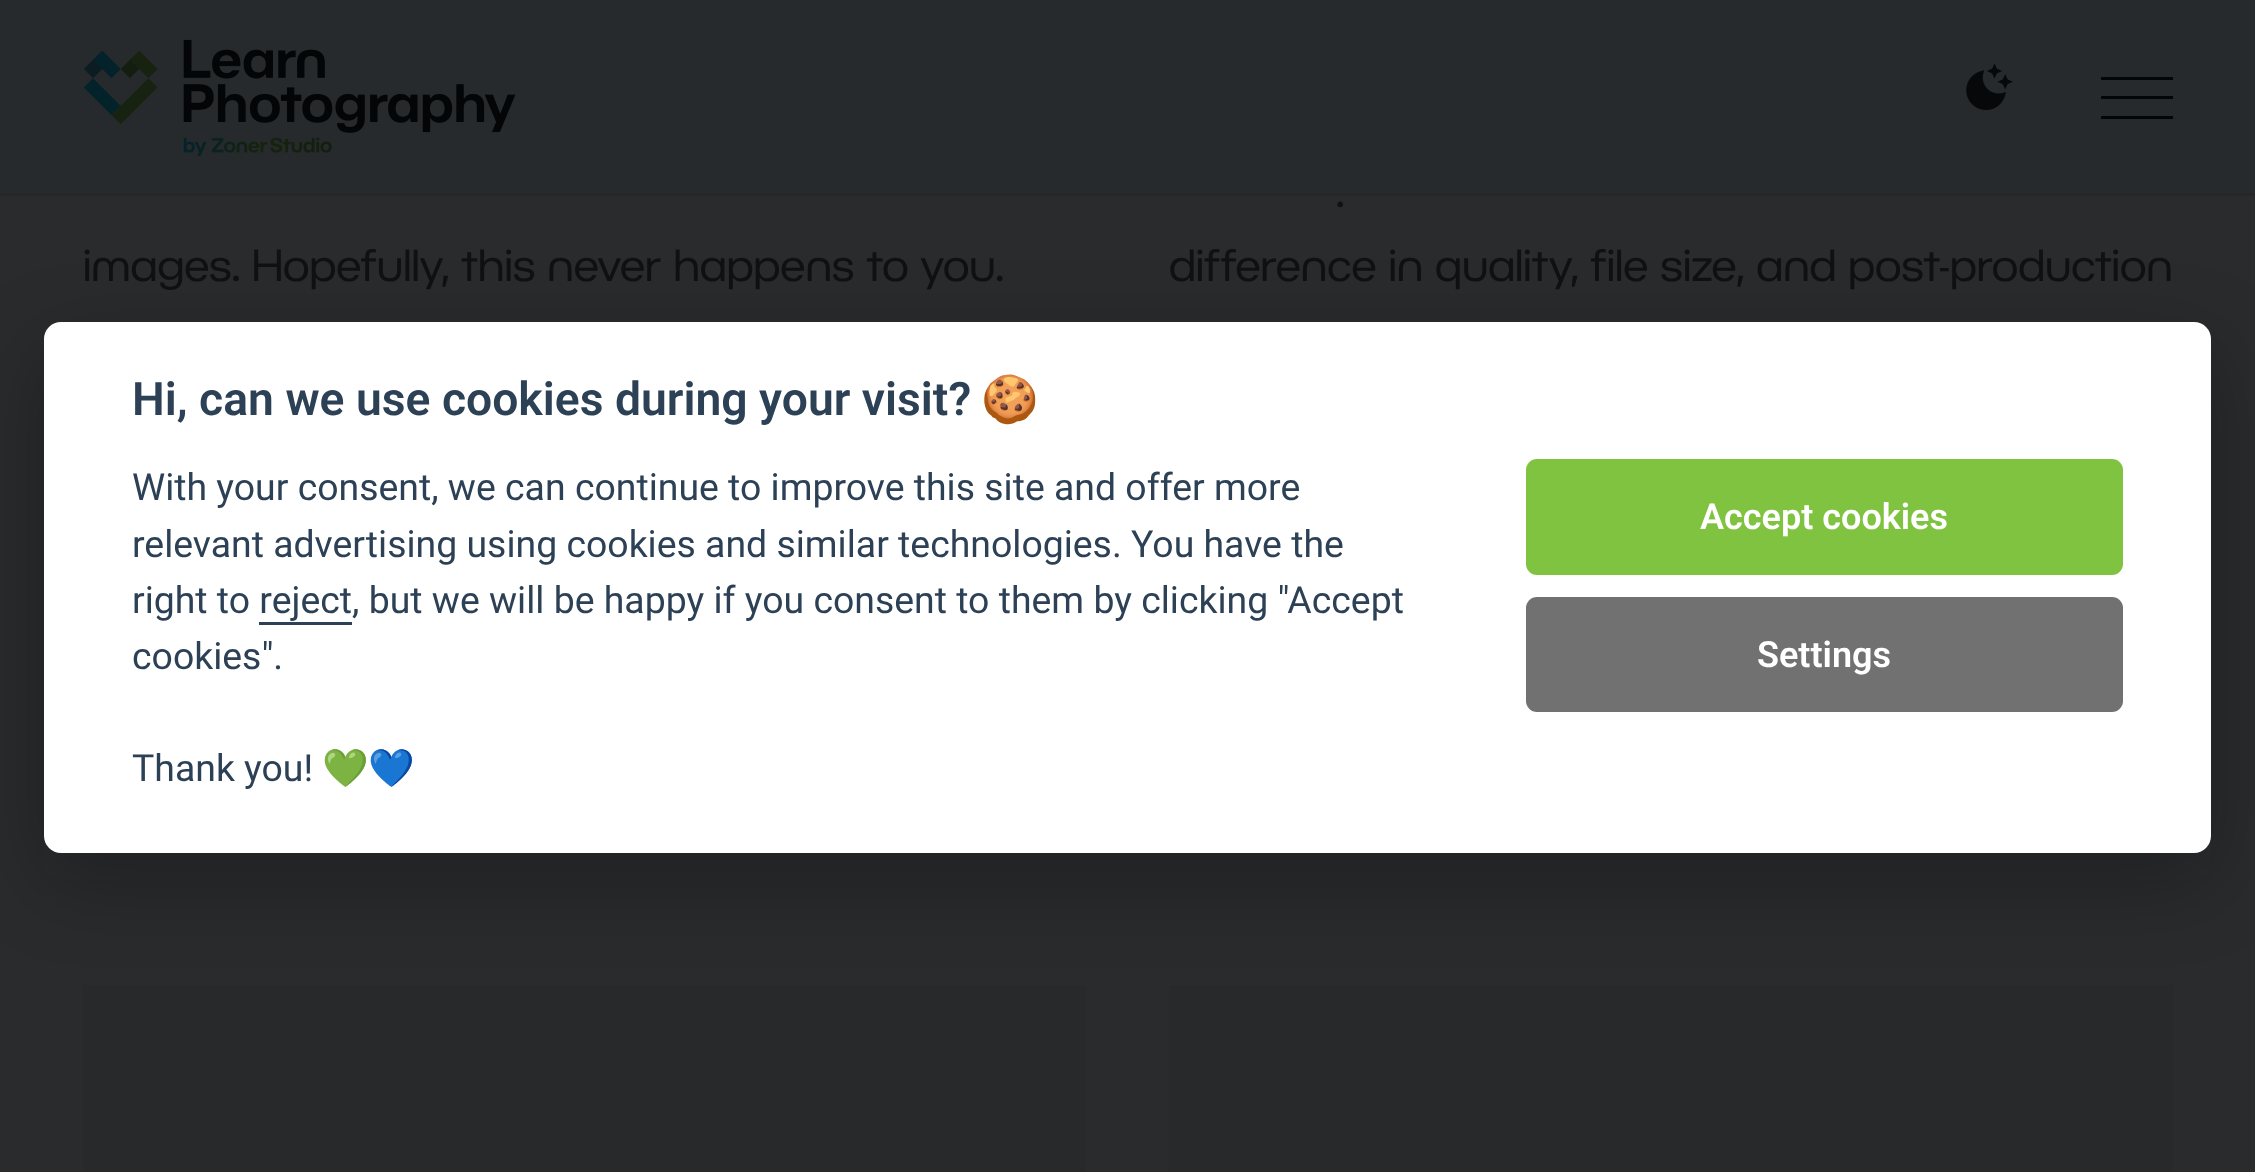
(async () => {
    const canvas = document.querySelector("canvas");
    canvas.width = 2255;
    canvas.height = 1172;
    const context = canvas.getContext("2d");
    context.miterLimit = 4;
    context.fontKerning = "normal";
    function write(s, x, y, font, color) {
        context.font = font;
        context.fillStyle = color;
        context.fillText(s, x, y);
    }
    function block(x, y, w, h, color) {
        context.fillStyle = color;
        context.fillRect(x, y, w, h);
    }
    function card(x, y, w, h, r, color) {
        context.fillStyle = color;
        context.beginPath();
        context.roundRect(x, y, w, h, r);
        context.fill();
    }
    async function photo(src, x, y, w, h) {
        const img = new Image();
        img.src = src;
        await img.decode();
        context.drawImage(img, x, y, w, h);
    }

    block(0, 0, 2255, 1172, "rgb(42, 43, 45)");
    block(0, 0, 2255, 195, "rgb(38, 42, 45)");
    block(0, 193, 2255, 3, "rgba(3, 5, 7, 0.07)");
    await photo("media/1.png", 83, 39, 433, 118);
    await photo("media/2.png", 1966, 63, 47, 47);
    block(2101, 77, 72, 3, "rgb(3, 5, 7)");
    block(2101, 96, 72, 3, "rgb(3, 5, 7)");
    block(2101, 116, 72, 3, "rgb(3, 5, 7)");
    write("images. Hopefully, this never happens to you.", 83, 281, "44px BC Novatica", "rgb(15, 17, 19)");
    write(".", 1336, 207, "44px BC Novatica", "rgb(15, 17, 19)");
    write("difference in quality, file size, and post-production", 1169, 281, "44px BC Novatica", "rgb(15, 17, 19)");
    block(83, 985, 1003, 187, "rgb(39, 41, 42)");
    block(1169, 985, 1004, 187, "rgb(39, 41, 42)");
    context.fillStyle = "rgba(2, 2, 3, 0.28)";
    context.filter = "blur(41px)";
    context.beginPath();
    context.roundRect(44, 349, 2167, 531, 17);
    context.fill();
    context.filter = "none";
    card(44, 322, 2167, 531, 17, "rgb(255, 255, 255)");
    write("Hi, can we use cookies during your visit?", 132, 415, "600 46.25px Roboto", "rgb(45, 65, 86)");
    write("🍪", 981, 415, "bold 46.25px Noto Color Emoji", "rgb(45, 65, 86)");
    write("With your consent, we can continue to improve this site and offer more", 132, 500, "37.4px Roboto", "rgb(45, 65, 86)");
    write("relevant advertising using cookies and similar technologies. You have the", 132, 557, "37.4px Roboto", "rgb(45, 65, 86)");
    write("right to reject, but we will be happy if you consent to them by clicking \"Accept", 132, 613, "37.4px Roboto", "rgb(45, 65, 86)");
    block(259, 622, 93, 3, "rgb(45, 65, 86)");
    write("cookies\".", 132, 669, "37.4px Roboto", "rgb(45, 65, 86)");
    write("Thank you!", 132, 781, "37.4px Roboto", "rgb(45, 65, 86)");
    write("💚💙", 322, 781, "37.4px Noto Color Emoji", "rgb(45, 65, 86)");
    card(1526, 459, 597, 116, 11, "rgb(128, 195, 65)");
    write("Accept cookies", 1700, 529, "600 36px Roboto", "rgb(255, 255, 255)");
    card(1526, 597, 597, 115, 11, "rgb(113, 113, 113)");
    write("Settings", 1757, 667, "600 36px Roboto", "rgb(255, 255, 255)");
})();
